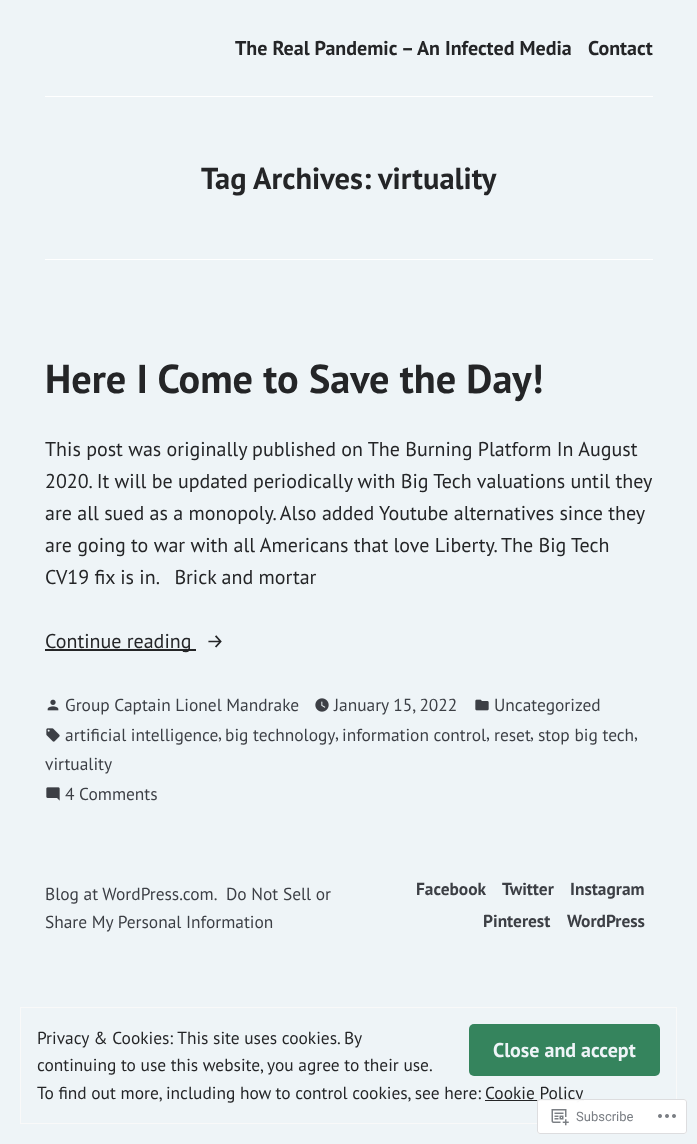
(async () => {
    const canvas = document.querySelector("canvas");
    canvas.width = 697;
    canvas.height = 1144;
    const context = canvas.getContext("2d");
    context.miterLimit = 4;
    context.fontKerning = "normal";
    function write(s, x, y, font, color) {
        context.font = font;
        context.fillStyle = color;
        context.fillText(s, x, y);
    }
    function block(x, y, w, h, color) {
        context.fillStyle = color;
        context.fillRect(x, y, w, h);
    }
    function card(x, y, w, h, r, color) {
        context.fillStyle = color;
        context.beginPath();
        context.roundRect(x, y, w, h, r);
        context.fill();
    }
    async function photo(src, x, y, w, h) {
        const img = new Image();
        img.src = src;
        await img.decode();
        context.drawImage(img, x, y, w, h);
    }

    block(0, 0, 697, 1144, "rgb(238, 244, 247)");
    write("The Real Pandemic – An Infected Media", 235, 55, "bold 20px PT Sans", "rgb(36, 37, 39)");
    write("Contact", 588, 55, "bold 20px PT Sans", "rgb(36, 37, 39)");
    block(45, 96, 608, 1, "rgb(255, 255, 255)");
    write("Tag Archives:", 201, 189, "bold 30.5px PT Sans", "rgb(36, 37, 39)");
    write("virtuality", 378, 189, "bold 30.5px PT Sans", "rgb(36, 37, 39)");
    block(45, 259, 608, 1, "rgb(255, 255, 255)");
    write("Here I Come to Save the Day!", 45, 393, "bold 40.25px PT Sans", "rgb(36, 37, 39)");
    write("This post was originally published on The Burning Platform In August", 45, 456, "20px PT Sans", "rgb(36, 37, 39)");
    write("2020. It will be updated periodically with Big Tech valuations until they", 45, 488, "20px PT Sans", "rgb(36, 37, 39)");
    write("are all sued as a monopoly. Also added Youtube alternatives since they", 45, 520, "20px PT Sans", "rgb(36, 37, 39)");
    write("are going to war with all Americans that love Liberty. The Big Tech", 45, 552, "20px PT Sans", "rgb(36, 37, 39)");
    write("CV19 fix is in.   Brick and mortar", 45, 584, "20px PT Sans", "rgb(36, 37, 39)");
    block(45, 649, 151, 2, "rgb(36, 37, 39)");
    write("Continue reading", 45, 648, "20px PT Sans", "rgb(36, 37, 39)");
    write("→", 206, 648, "20px Fira Sans", "rgb(36, 37, 39)");
    await photo("media/1.png", 47, 699, 12, 12);
    write("Group Captain Lionel Mandrake", 65, 711, "17.4px PT Sans", "rgb(60, 63, 69)");
    await photo("media/2.png", 315, 698, 14, 14);
    write("January 15, 2022", 334, 711, "17.4px PT Sans", "rgb(60, 63, 69)");
    await photo("media/3.png", 475, 699, 14, 12);
    write("Uncategorized", 494, 711, "17.4px PT Sans", "rgb(60, 63, 69)");
    await photo("media/4.png", 46, 728, 14, 14);
    write("artificial intelligence", 65, 741, "17.4px PT Sans", "rgb(60, 63, 69)");
    write(",", 218, 739, "17.4px PT Sans", "rgb(60, 63, 69)");
    write("big technology", 225, 741, "17.4px PT Sans", "rgb(60, 63, 69)");
    write(",", 335, 739, "17.4px PT Sans", "rgb(60, 63, 69)");
    write("information control", 342, 741, "17.4px PT Sans", "rgb(60, 63, 69)");
    write(",", 486, 739, "17.4px PT Sans", "rgb(60, 63, 69)");
    write("reset", 494, 741, "17.4px PT Sans", "rgb(60, 63, 69)");
    write(",", 530, 739, "17.4px PT Sans", "rgb(60, 63, 69)");
    write("stop big tech", 538, 741, "17.4px PT Sans", "rgb(60, 63, 69)");
    write(",", 634, 739, "17.4px PT Sans", "rgb(60, 63, 69)");
    write("virtuality", 45, 770, "17.4px PT Sans", "rgb(60, 63, 69)");
    await photo("media/5.png", 46, 787, 14, 14);
    write("4 Comments", 65, 800, "17.4px PT Sans", "rgb(60, 63, 69)");
    write("Blog at WordPress.com.", 45, 900, "17.4px PT Sans", "rgb(60, 63, 69)");
    write("Do Not Sell or", 226, 900, "17.4px PT Sans", "rgb(60, 63, 69)");
    write("Share My Personal Information", 45, 928, "17.4px PT Sans", "rgb(60, 63, 69)");
    write("Facebook", 416, 895, "bold 17.4px PT Sans", "rgb(60, 63, 69)");
    write("Twitter", 502, 895, "bold 17.4px PT Sans", "rgb(60, 63, 69)");
    write("Instagram", 570, 895, "bold 17.4px PT Sans", "rgb(60, 63, 69)");
    write("Pinterest", 483, 927, "bold 17.4px PT Sans", "rgb(60, 63, 69)");
    write("WordPress", 567, 927, "bold 17.4px PT Sans", "rgb(60, 63, 69)");
    context.strokeStyle = "rgb(249, 249, 249)";
    context.strokeRect(20.5, 1007.5, 656, 116);
    write("Privacy & Cookies: This site uses cookies. By", 37, 1044, "17.4px PT Sans", "rgb(36, 37, 39)");
    card(469, 1024, 191, 52, 5, "rgb(53, 132, 93)");
    write("Close and accept", 493, 1057, "bold 20px PT Sans", "rgb(238, 244, 247)");
    write("continuing to use this website, you agree to their use.", 37, 1071, "17.4px PT Sans", "rgb(36, 37, 39)");
    write("To find out more, including how to control cookies, see here:", 37, 1099, "17.4px PT Sans", "rgb(36, 37, 39)");
    block(485, 1100, 99, 1, "rgb(36, 37, 39)");
    write("Cookie Policy", 485, 1099, "17.4px PT Sans", "rgb(36, 37, 39)");
    card(537, 1099, 150, 35, 3, "rgba(255, 255, 255, 0.98)");
    context.beginPath();
    context.roundRect(537.5, 1099.5, 149, 34, 2.5);
    context.strokeStyle = "rgba(220, 220, 222, 0.98)";
    context.stroke();
    await photo("media/6.png", 551, 1109, 18, 17);
    write("Subscribe", 576, 1121, "13px Roboto", "rgb(122, 126, 132)");
    await photo("media/7.png", 658, 1114, 18, 4);
})();
